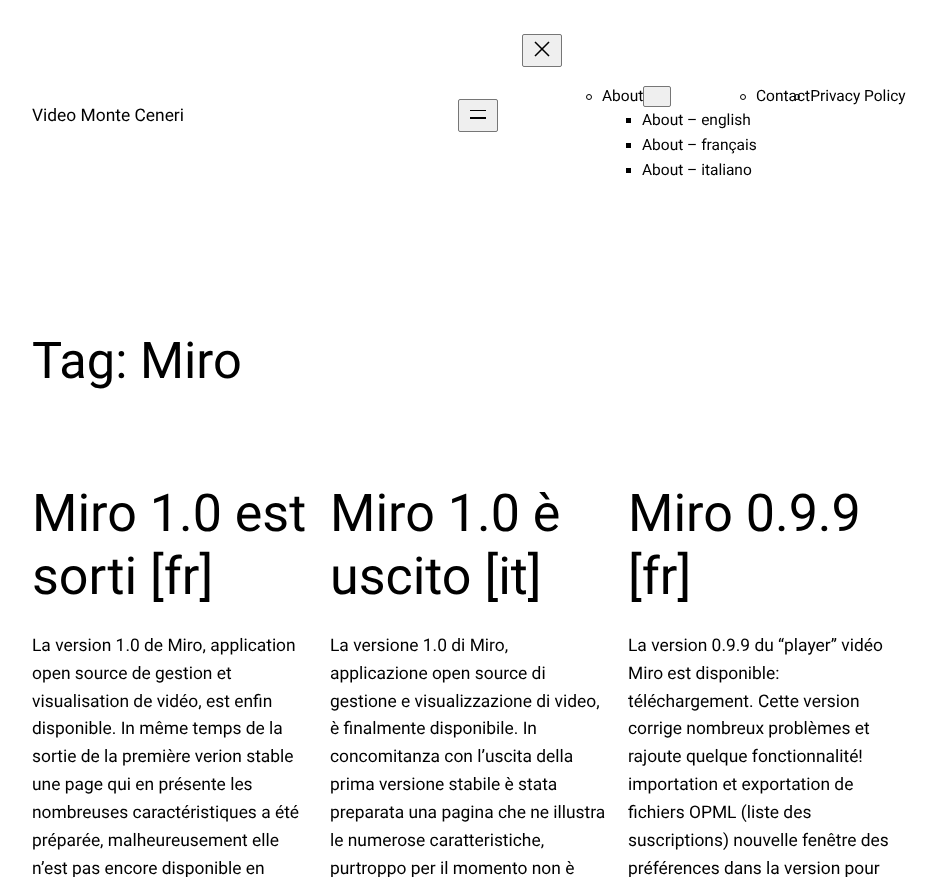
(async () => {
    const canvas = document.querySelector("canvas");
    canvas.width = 937;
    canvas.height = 877;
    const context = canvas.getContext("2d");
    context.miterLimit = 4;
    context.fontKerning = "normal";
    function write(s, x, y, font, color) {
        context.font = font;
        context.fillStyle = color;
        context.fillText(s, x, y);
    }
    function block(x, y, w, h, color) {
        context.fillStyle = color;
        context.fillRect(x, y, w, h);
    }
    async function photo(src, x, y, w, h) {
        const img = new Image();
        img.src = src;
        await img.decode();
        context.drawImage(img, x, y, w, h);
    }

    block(0, 0, 937, 877, "rgb(255, 255, 255)");
    write("Video Monte Ceneri", 32, 121, "17.4px Roboto", "rgb(0, 0, 0)");
    context.fillStyle = "rgb(239, 239, 239)";
    context.beginPath();
    context.roundRect(458.5, 99.5, 39, 32, 1.5);
    context.fill();
    context.strokeStyle = "rgb(118, 118, 118)";
    context.stroke();
    block(470, 110, 16, 1, "rgb(0, 0, 0)");
    block(470, 117, 16, 2, "rgb(0, 0, 0)");
    context.fillStyle = "rgb(239, 239, 239)";
    context.beginPath();
    context.roundRect(522.5, 34.5, 39, 32, 1.5);
    context.fill();
    context.stroke();
    await photo("media/1.png", 534, 41, 16, 16);
    context.beginPath();
    context.arc(589, 97, 2.5, 0, Math.PI * 2);
    context.strokeStyle = "rgb(0, 0, 0)";
    context.stroke();
    write("About", 602, 101, "15.5px Roboto", "rgb(0, 0, 0)");
    context.fillStyle = "rgb(239, 239, 239)";
    context.beginPath();
    context.roundRect(643.5, 86.5, 27, 20, 1.5);
    context.fill();
    context.strokeStyle = "rgb(118, 118, 118)";
    context.stroke();
    block(626, 118, 5, 5, "rgb(0, 0, 0)");
    write("About – english", 642, 125, "15.5px Roboto", "rgb(0, 0, 0)");
    block(626, 143, 5, 5, "rgb(0, 0, 0)");
    write("About – français", 642, 150, "15.5px Roboto", "rgb(0, 0, 0)");
    block(626, 168, 5, 5, "rgb(0, 0, 0)");
    write("About – italiano", 642, 175, "15.5px Roboto", "rgb(0, 0, 0)");
    context.beginPath();
    context.arc(743, 97, 2.5, 0, Math.PI * 2);
    context.strokeStyle = "rgb(0, 0, 0)";
    context.stroke();
    write("ContactPrivacy Policy", 756, 101, "15.5px Roboto", "rgb(0, 0, 0)");
    context.beginPath();
    context.arc(797, 97, 2.5, 0, Math.PI * 2);
    context.stroke();
    write("Tag: Miro", 32, 378, "50.5px Roboto", "rgb(0, 0, 0)");
    write("Miro 1.0 est", 32, 531, "52px Roboto", "rgb(0, 0, 0)");
    write("sorti [fr]", 32, 594, "52px Roboto", "rgb(0, 0, 0)");
    write("La version 1.0 de Miro, application", 32, 651, "17.4px Roboto", "rgb(0, 0, 0)");
    write("open source de gestion et", 32, 679, "17.4px Roboto", "rgb(0, 0, 0)");
    write("visualisation de vidéo, est enfin", 32, 707, "17.4px Roboto", "rgb(0, 0, 0)");
    write("disponible. In même temps de la", 32, 734, "17.4px Roboto", "rgb(0, 0, 0)");
    write("sortie de la première verion stable", 32, 762, "17.4px Roboto", "rgb(0, 0, 0)");
    write("une page qui en présente les", 32, 790, "17.4px Roboto", "rgb(0, 0, 0)");
    write("nombreuses caractéristiques a été", 32, 818, "17.4px Roboto", "rgb(0, 0, 0)");
    write("préparée, malheureusement elle", 32, 846, "17.4px Roboto", "rgb(0, 0, 0)");
    write("n’est pas encore disponible en", 32, 874, "17.4px Roboto", "rgb(0, 0, 0)");
    write("Miro 1.0 è", 330, 531, "52px Roboto", "rgb(0, 0, 0)");
    write("uscito [it]", 330, 594, "52px Roboto", "rgb(0, 0, 0)");
    write("La versione 1.0 di Miro,", 330, 651, "17.4px Roboto", "rgb(0, 0, 0)");
    write("applicazione open source di", 330, 679, "17.4px Roboto", "rgb(0, 0, 0)");
    write("gestione e visualizzazione di video,", 330, 707, "17.4px Roboto", "rgb(0, 0, 0)");
    write("è finalmente disponibile. In", 330, 734, "17.4px Roboto", "rgb(0, 0, 0)");
    write("concomitanza con l’uscita della", 330, 762, "17.4px Roboto", "rgb(0, 0, 0)");
    write("prima versione stabile è stata", 330, 790, "17.4px Roboto", "rgb(0, 0, 0)");
    write("preparata una pagina che ne illustra", 330, 818, "17.4px Roboto", "rgb(0, 0, 0)");
    write("le numerose caratteristiche,", 330, 846, "17.4px Roboto", "rgb(0, 0, 0)");
    write("purtroppo per il momento non è", 330, 874, "17.4px Roboto", "rgb(0, 0, 0)");
    write("Miro 0.9.9", 628, 531, "52px Roboto", "rgb(0, 0, 0)");
    write("[fr]", 628, 594, "52px Roboto", "rgb(0, 0, 0)");
    write("La version 0.9.9 du “player” vidéo", 628, 651, "17.4px Roboto", "rgb(0, 0, 0)");
    write("Miro est disponible:", 628, 679, "17.4px Roboto", "rgb(0, 0, 0)");
    write("téléchargement. Cette version", 628, 707, "17.4px Roboto", "rgb(0, 0, 0)");
    write("corrige nombreux problèmes et", 628, 734, "17.4px Roboto", "rgb(0, 0, 0)");
    write("rajoute quelque fonctionnalité!", 628, 762, "17.4px Roboto", "rgb(0, 0, 0)");
    write("importation et exportation de", 628, 790, "17.4px Roboto", "rgb(0, 0, 0)");
    write("fichiers OPML (liste des", 628, 818, "17.4px Roboto", "rgb(0, 0, 0)");
    write("suscriptions) nouvelle fenêtre des", 628, 846, "17.4px Roboto", "rgb(0, 0, 0)");
    write("préférences dans la version pour", 628, 874, "17.4px Roboto", "rgb(0, 0, 0)");
})();
